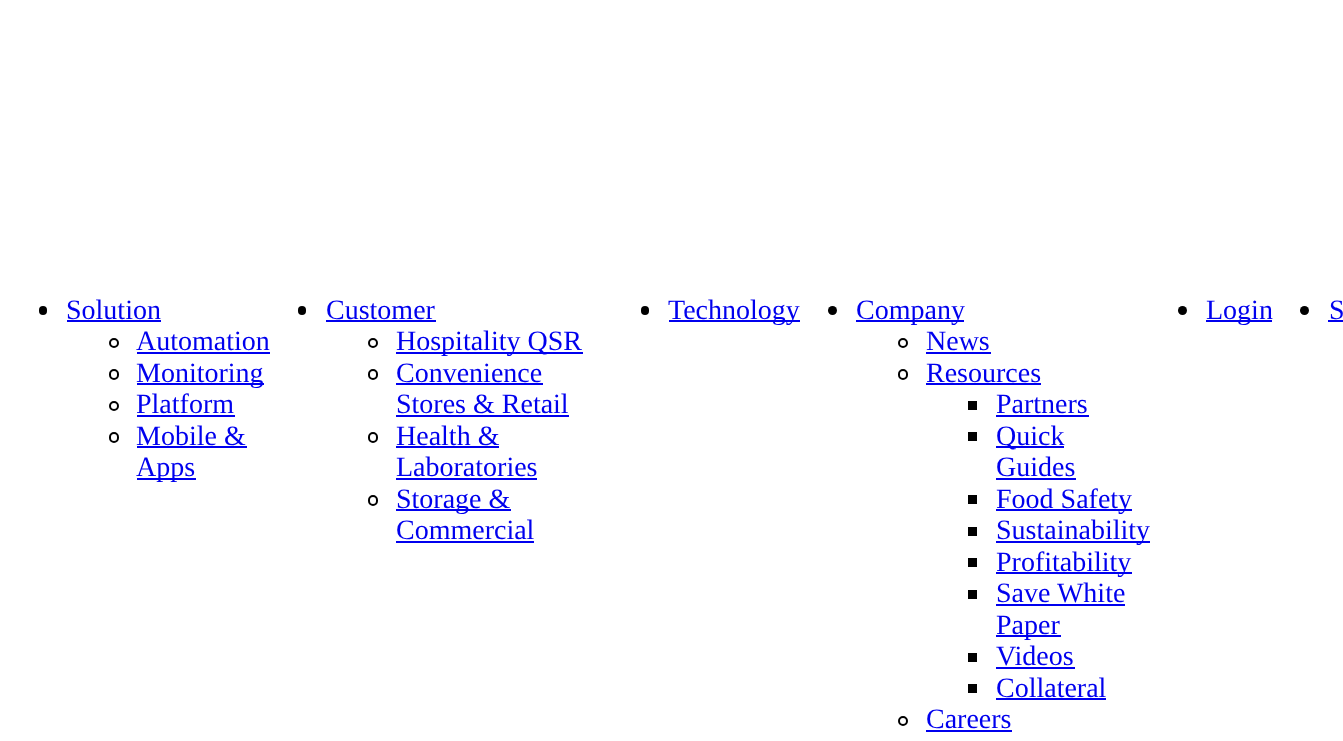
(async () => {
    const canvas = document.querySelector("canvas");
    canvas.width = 1343;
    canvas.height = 741;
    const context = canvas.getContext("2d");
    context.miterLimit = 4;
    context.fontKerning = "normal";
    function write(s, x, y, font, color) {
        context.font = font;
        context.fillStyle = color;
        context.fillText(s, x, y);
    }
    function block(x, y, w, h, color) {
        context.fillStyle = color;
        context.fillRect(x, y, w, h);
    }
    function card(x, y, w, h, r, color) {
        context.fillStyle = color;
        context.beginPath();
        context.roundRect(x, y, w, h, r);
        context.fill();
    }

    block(0, 0, 1343, 741, "rgb(255, 255, 255)");
    card(39, 306, 8, 9, 4, "rgb(0, 0, 0)");
    write("Solution", 66, 319, "28px Liberation Serif", "rgb(0, 0, 238)");
    block(67, 320, 94, 2, "rgb(0, 0, 238)");
    context.beginPath();
    context.arc(114, 343, 4, 0, Math.PI * 2);
    context.strokeStyle = "rgb(0, 0, 0)";
    context.lineWidth = 2;
    context.stroke();
    write("Automation", 136, 350, "28px Liberation Serif", "rgb(0, 0, 238)");
    block(137, 352, 133, 2, "rgb(0, 0, 238)");
    context.beginPath();
    context.roundRect(110, 370, 8, 9, 4);
    context.stroke();
    block(137, 383, 127, 2, "rgb(0, 0, 238)");
    write("Monitoring", 136, 382, "28px Liberation Serif", "rgb(0, 0, 238)");
    context.beginPath();
    context.arc(114, 406, 4, 0, Math.PI * 2);
    context.stroke();
    write("Platform", 136, 413, "28px Liberation Serif", "rgb(0, 0, 238)");
    block(137, 415, 98, 2, "rgb(0, 0, 238)");
    context.beginPath();
    context.roundRect(110, 433, 8, 9, 4);
    context.stroke();
    write("Mobile &", 136, 445, "28px Liberation Serif", "rgb(0, 0, 238)");
    block(137, 446, 110, 2, "rgb(0, 0, 238)");
    block(137, 478, 59, 2, "rgb(0, 0, 238)");
    write("Apps", 136, 476, "28px Liberation Serif", "rgb(0, 0, 238)");
    card(298, 306, 8, 9, 4, "rgb(0, 0, 0)");
    write("Customer", 326, 319, "28px Liberation Serif", "rgb(0, 0, 238)");
    block(326, 320, 110, 2, "rgb(0, 0, 238)");
    context.beginPath();
    context.arc(373, 343, 4, 0, Math.PI * 2);
    context.stroke();
    block(396, 352, 187, 2, "rgb(0, 0, 238)");
    write("Hospitality QSR", 396, 350, "28px Liberation Serif", "rgb(0, 0, 238)");
    context.beginPath();
    context.roundRect(369, 370, 8, 9, 4);
    context.stroke();
    write("Convenience", 396, 382, "28px Liberation Serif", "rgb(0, 0, 238)");
    block(396, 383, 147, 2, "rgb(0, 0, 238)");
    write("Stores & Retail", 396, 413, "28px Liberation Serif", "rgb(0, 0, 238)");
    block(396, 415, 173, 2, "rgb(0, 0, 238)");
    context.beginPath();
    context.roundRect(369, 433, 8, 9, 4);
    context.stroke();
    write("Health &", 396, 445, "28px Liberation Serif", "rgb(0, 0, 238)");
    block(396, 446, 103, 2, "rgb(0, 0, 238)");
    write("Laboratories", 396, 476, "28px Liberation Serif", "rgb(0, 0, 238)");
    block(396, 478, 141, 2, "rgb(0, 0, 238)");
    context.beginPath();
    context.roundRect(369, 496, 8, 9, 4);
    context.stroke();
    block(396, 509, 115, 2, "rgb(0, 0, 238)");
    write("Storage &", 396, 508, "28px Liberation Serif", "rgb(0, 0, 238)");
    write("Commercial", 396, 539, "28px Liberation Serif", "rgb(0, 0, 238)");
    block(396, 541, 138, 2, "rgb(0, 0, 238)");
    card(641, 306, 8, 9, 4, "rgb(0, 0, 0)");
    block(669, 320, 131, 2, "rgb(0, 0, 238)");
    write("Technology", 668, 319, "28px Liberation Serif", "rgb(0, 0, 238)");
    context.fillStyle = "rgb(0, 0, 0)";
    context.beginPath();
    context.arc(832.5, 310.5, 4.5, 0, Math.PI * 2);
    context.fill();
    block(856, 320, 108, 2, "rgb(0, 0, 238)");
    write("Company", 856, 319, "28px Liberation Serif", "rgb(0, 0, 238)");
    context.beginPath();
    context.arc(903, 343, 4, 0, Math.PI * 2);
    context.stroke();
    write("News", 926, 350, "28px Liberation Serif", "rgb(0, 0, 238)");
    block(926, 352, 65, 2, "rgb(0, 0, 238)");
    context.beginPath();
    context.roundRect(899, 370, 8, 9, 4);
    context.stroke();
    write("Resources", 926, 382, "28px Liberation Serif", "rgb(0, 0, 238)");
    block(926, 383, 115, 2, "rgb(0, 0, 238)");
    block(968, 401, 9, 9, "rgb(0, 0, 0)");
    write("Partners", 996, 413, "28px Liberation Serif", "rgb(0, 0, 238)");
    block(996, 415, 93, 2, "rgb(0, 0, 238)");
    block(968, 432, 9, 9, "rgb(0, 0, 0)");
    block(996, 446, 68, 2, "rgb(0, 0, 238)");
    write("Quick", 996, 445, "28px Liberation Serif", "rgb(0, 0, 238)");
    write("Guides", 996, 476, "28px Liberation Serif", "rgb(0, 0, 238)");
    block(996, 478, 80, 2, "rgb(0, 0, 238)");
    block(968, 495, 9, 9, "rgb(0, 0, 0)");
    block(996, 509, 136, 2, "rgb(0, 0, 238)");
    write("Food Safety", 996, 508, "28px Liberation Serif", "rgb(0, 0, 238)");
    block(968, 527, 9, 9, "rgb(0, 0, 0)");
    block(996, 541, 154, 2, "rgb(0, 0, 238)");
    write("Sustainability", 996, 539, "28px Liberation Serif", "rgb(0, 0, 238)");
    block(968, 558, 9, 9, "rgb(0, 0, 0)");
    block(996, 572, 136, 2, "rgb(0, 0, 238)");
    write("Profitability", 996, 571, "28px Liberation Serif", "rgb(0, 0, 238)");
    block(968, 590, 9, 9, "rgb(0, 0, 0)");
    write("Save White", 996, 602, "28px Liberation Serif", "rgb(0, 0, 238)");
    block(996, 604, 129, 2, "rgb(0, 0, 238)");
    block(996, 635, 65, 2, "rgb(0, 0, 238)");
    write("Paper", 996, 634, "28px Liberation Serif", "rgb(0, 0, 238)");
    block(968, 653, 9, 9, "rgb(0, 0, 0)");
    write("Videos", 996, 665, "28px Liberation Serif", "rgb(0, 0, 238)");
    block(996, 667, 79, 2, "rgb(0, 0, 238)");
    block(968, 684, 9, 9, "rgb(0, 0, 0)");
    write("Collateral", 996, 697, "28px Liberation Serif", "rgb(0, 0, 238)");
    block(996, 698, 110, 2, "rgb(0, 0, 238)");
    context.beginPath();
    context.arc(903, 721, 4, 0, Math.PI * 2);
    context.stroke();
    write("Careers", 926, 728, "28px Liberation Serif", "rgb(0, 0, 238)");
    block(926, 730, 86, 2, "rgb(0, 0, 238)");
    context.fillStyle = "rgb(0, 0, 0)";
    context.beginPath();
    context.arc(1182.5, 310.5, 4.5, 0, Math.PI * 2);
    context.fill();
    block(1206, 320, 66, 2, "rgb(0, 0, 238)");
    write("Login", 1206, 319, "28px Liberation Serif", "rgb(0, 0, 238)");
    context.fillStyle = "rgb(0, 0, 0)";
    context.beginPath();
    context.arc(1304.5, 310.5, 4.5, 0, Math.PI * 2);
    context.fill();
    write("S", 1329, 319, "28px Liberation Serif", "rgb(0, 0, 238)");
    block(1328, 320, 15, 2, "rgb(0, 0, 238)");
})();
